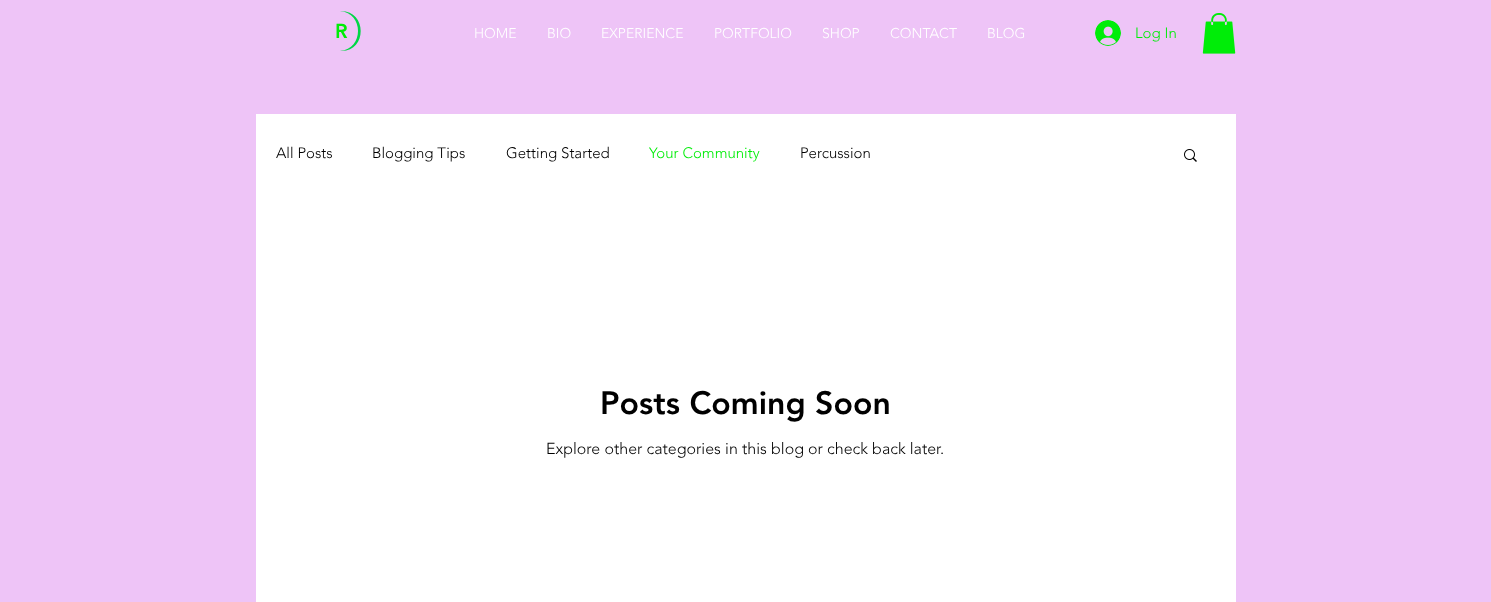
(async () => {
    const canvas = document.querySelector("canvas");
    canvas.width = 1491;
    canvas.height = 602;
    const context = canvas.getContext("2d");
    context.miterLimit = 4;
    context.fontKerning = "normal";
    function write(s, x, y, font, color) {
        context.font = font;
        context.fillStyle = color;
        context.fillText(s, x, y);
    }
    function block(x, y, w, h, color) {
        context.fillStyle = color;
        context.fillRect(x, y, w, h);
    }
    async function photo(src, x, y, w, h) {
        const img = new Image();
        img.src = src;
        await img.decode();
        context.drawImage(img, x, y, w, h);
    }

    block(0, 0, 1491, 602, "rgb(238, 196, 247)");
    context.fillStyle = "rgb(0, 214, 70)";
    context.beginPath();
    context.moveTo(341, 11);
    context.lineTo(340, 11);
    context.bezierCurveTo(364, 13, 364, 49, 340, 51);
    context.bezierCurveTo(367, 53, 368, 11, 341, 11);
    context.closePath();
    context.fill();
    await photo("media/1.png", 1202, 13, 34, 41);
    write("R", 335, 38, "900 20px 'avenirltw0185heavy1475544'", "rgb(0, 237, 8)");
    write("HOME", 474, 38, "300 14px 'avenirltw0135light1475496'", "rgb(255, 255, 255)");
    write("BIO", 547, 38, "300 14px 'avenirltw0135light1475496'", "rgb(255, 255, 255)");
    write("EXPERIENCE", 601, 38, "300 14px 'avenirltw0135light1475496'", "rgb(255, 255, 255)");
    write("PORTFOLIO", 714, 38, "300 14px 'avenirltw0135light1475496'", "rgb(255, 255, 255)");
    write("SHOP", 822, 38, "300 14px 'avenirltw0135light1475496'", "rgb(255, 255, 255)");
    write("CONTACT", 890, 38, "300 14px 'avenirltw0135light1475496'", "rgb(255, 255, 255)");
    write("BLOG", 987, 38, "300 14px 'avenirltw0135light1475496'", "rgb(255, 255, 255)");
    await photo("media/2.png", 1095, 20, 26, 26);
    write("Log In", 1135, 38, "300 15px 'avenirltw0135light1475496'", "rgb(0, 237, 8)");
    block(256, 114, 980, 488, "rgb(255, 255, 255)");
    write("All Posts", 276, 158, "300 15px 'avenirltw0135light1475496'", "rgb(0, 0, 0)");
    write("Blogging Tips", 372, 158, "300 15px 'avenirltw0135light1475496'", "rgb(0, 0, 0)");
    write("Getting Started", 506, 158, "300 15px 'avenirltw0135light1475496'", "rgb(0, 0, 0)");
    write("Your Community", 649, 158, "300 15px 'avenirltw0135light1475496'", "rgb(0, 237, 8)");
    write("Percussion", 800, 158, "300 15px 'avenirltw0135light1475496'", "rgb(0, 0, 0)");
    await photo("media/3.png", 1184, 149, 13, 13);
    write("Posts Coming Soon", 600, 414, "900 32px 'avenirltw0185heavy1475544'", "rgb(0, 0, 0)");
    write("Explore other categories in this blog or check back later.", 546, 454, "300 16px 'avenirltw0135light1475496'", "rgb(0, 0, 0)");
})();
